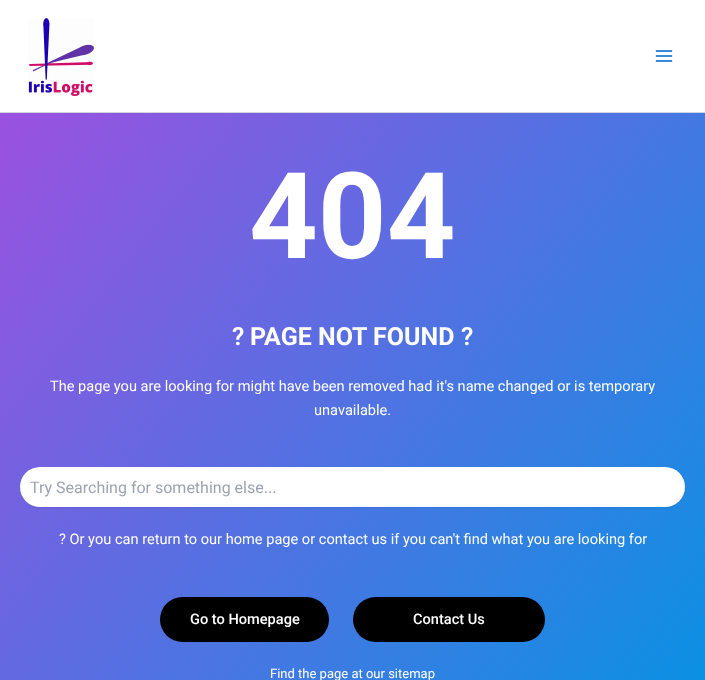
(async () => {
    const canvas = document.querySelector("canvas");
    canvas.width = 705;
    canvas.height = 680;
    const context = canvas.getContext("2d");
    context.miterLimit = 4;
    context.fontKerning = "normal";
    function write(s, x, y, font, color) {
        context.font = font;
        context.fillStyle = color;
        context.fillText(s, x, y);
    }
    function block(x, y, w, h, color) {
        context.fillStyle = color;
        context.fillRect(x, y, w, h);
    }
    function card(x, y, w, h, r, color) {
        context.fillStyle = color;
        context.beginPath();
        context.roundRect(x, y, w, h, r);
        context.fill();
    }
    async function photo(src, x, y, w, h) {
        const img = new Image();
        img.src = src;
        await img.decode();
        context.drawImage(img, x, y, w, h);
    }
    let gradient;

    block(0, 0, 705, 680, "rgb(255, 255, 255)");
    block(0, 112, 705, 1, "rgb(209, 213, 219)");
    await photo("media/1.png", 28, 18, 66, 78);
    await photo("media/2.png", 655, 50, 18, 12);
    gradient = context.createLinearGradient(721, 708, -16, 133);
    gradient.addColorStop(0, "rgb(6, 147, 227)");
    gradient.addColorStop(1, "rgb(155, 81, 224)");
    context.fillStyle = gradient;
    context.fillRect(0, 113, 705, 567);
    write("404", 249, 258, "bold 120px Roboto", "rgb(255, 255, 255)");
    write("?", 232, 345, "600 25px Roboto", "rgb(255, 255, 255)");
    write("PAGE NOT FOUND", 250, 345, "bold 25px Roboto", "rgb(255, 255, 255)");
    write("?", 461, 345, "600 25px Roboto", "rgb(255, 255, 255)");
    write("The page you are looking for might have been removed had it's name changed or is temporary", 50, 391, "14.6px Roboto", "rgb(255, 255, 255)");
    write("unavailable.", 314, 415, "14.6px Roboto", "rgb(255, 255, 255)");
    context.fillStyle = "rgba(0, 0, 0, 0.05)";
    context.filter = "blur(1px)";
    context.beginPath();
    context.roundRect(20, 468, 665, 40, 20);
    context.fill();
    context.filter = "none";
    card(20, 467, 665, 40, 20, "rgb(255, 255, 255)");
    write("Try Searching for something else...", 30, 493, "16px Roboto", "rgb(156, 163, 175)");
    write("? Or you can return to our home page or contact us if you can't find what you are looking for", 59, 544, "14.6px Roboto", "rgb(255, 255, 255)");
    card(160, 597, 169, 45, 22.5, "rgb(0, 0, 0)");
    write("Go to Homepage", 190, 624, "500 14.6px Roboto", "rgb(255, 255, 255)");
    card(353, 597, 192, 45, 22.5, "rgb(0, 0, 0)");
    write("Contact Us", 413, 624, "500 14.6px Roboto", "rgb(255, 255, 255)");
    write("Find the page at our sitemap", 270, 678, "13px Roboto", "rgb(255, 255, 255)");
})();
